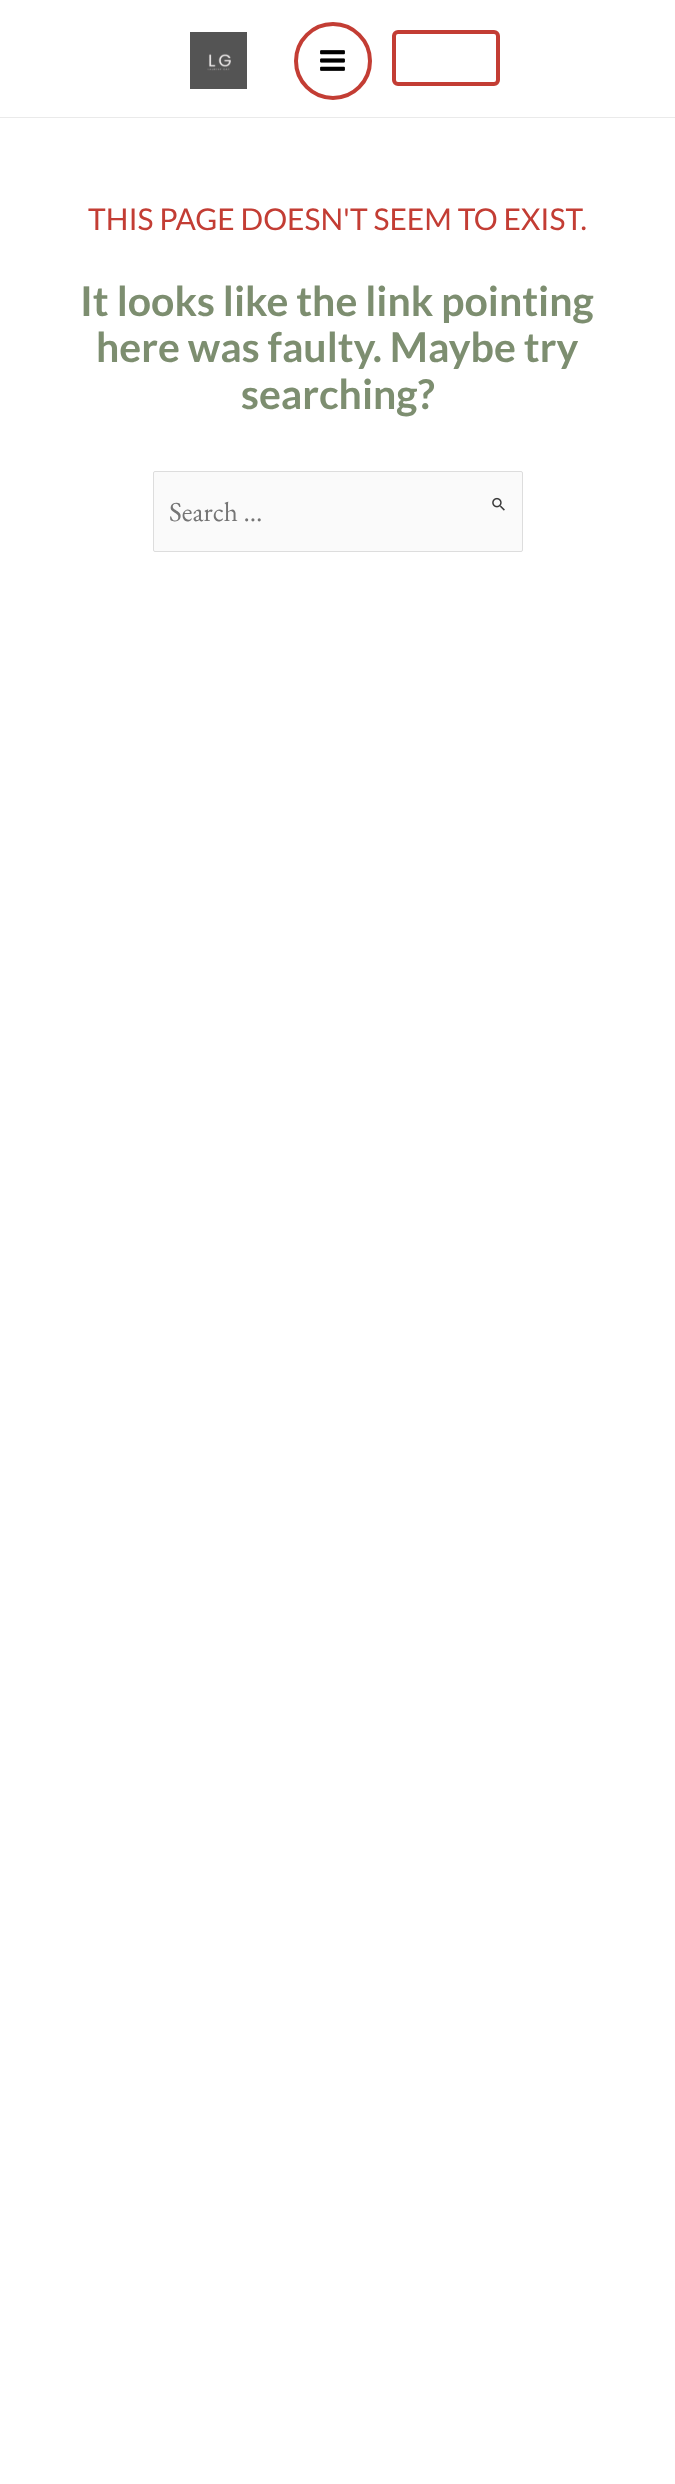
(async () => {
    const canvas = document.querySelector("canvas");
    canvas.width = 675;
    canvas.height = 2484;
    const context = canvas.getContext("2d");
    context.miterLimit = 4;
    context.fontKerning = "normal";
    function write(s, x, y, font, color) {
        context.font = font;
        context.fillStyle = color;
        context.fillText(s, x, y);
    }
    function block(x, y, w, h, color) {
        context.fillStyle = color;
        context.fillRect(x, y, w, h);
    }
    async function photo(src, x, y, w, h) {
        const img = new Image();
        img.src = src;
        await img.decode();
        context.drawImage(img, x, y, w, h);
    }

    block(0, 0, 675, 2484, "rgb(255, 255, 255)");
    block(0, 117, 675, 1, "rgb(234, 234, 234)");
    await photo("media/1.png", 190, 32, 57, 57);
    context.beginPath();
    context.arc(333, 61, 37, 0, Math.PI * 2);
    context.strokeStyle = "rgb(195, 61, 52)";
    context.lineWidth = 4;
    context.stroke();
    await photo("media/2.png", 320, 50, 25, 21);
    context.beginPath();
    context.roundRect(394, 32, 104, 52, 4);
    context.stroke();
    write("THIS PAGE DOESN'T SEEM TO EXIST.", 88, 230, "30px Lato", "rgb(195, 61, 52)");
    write("It looks like the link pointing", 80, 316, "bold 41px Lato", "rgb(125, 142, 112)");
    write("here was faulty. Maybe try", 96, 362, "bold 41px Lato", "rgb(125, 142, 112)");
    write("searching?", 241, 409, "bold 41px Lato", "rgb(125, 142, 112)");
    context.fillStyle = "rgb(250, 250, 250)";
    context.beginPath();
    context.roundRect(153.5, 471.5, 369, 80, 1.5);
    context.fill();
    context.strokeStyle = "rgb(221, 221, 221)";
    context.lineWidth = 1;
    context.stroke();
    write("Search …", 169, 521, "27.5px EB Garamond", "rgb(117, 117, 117)");
    await photo("media/3.png", 492, 497, 13, 14);
})();
